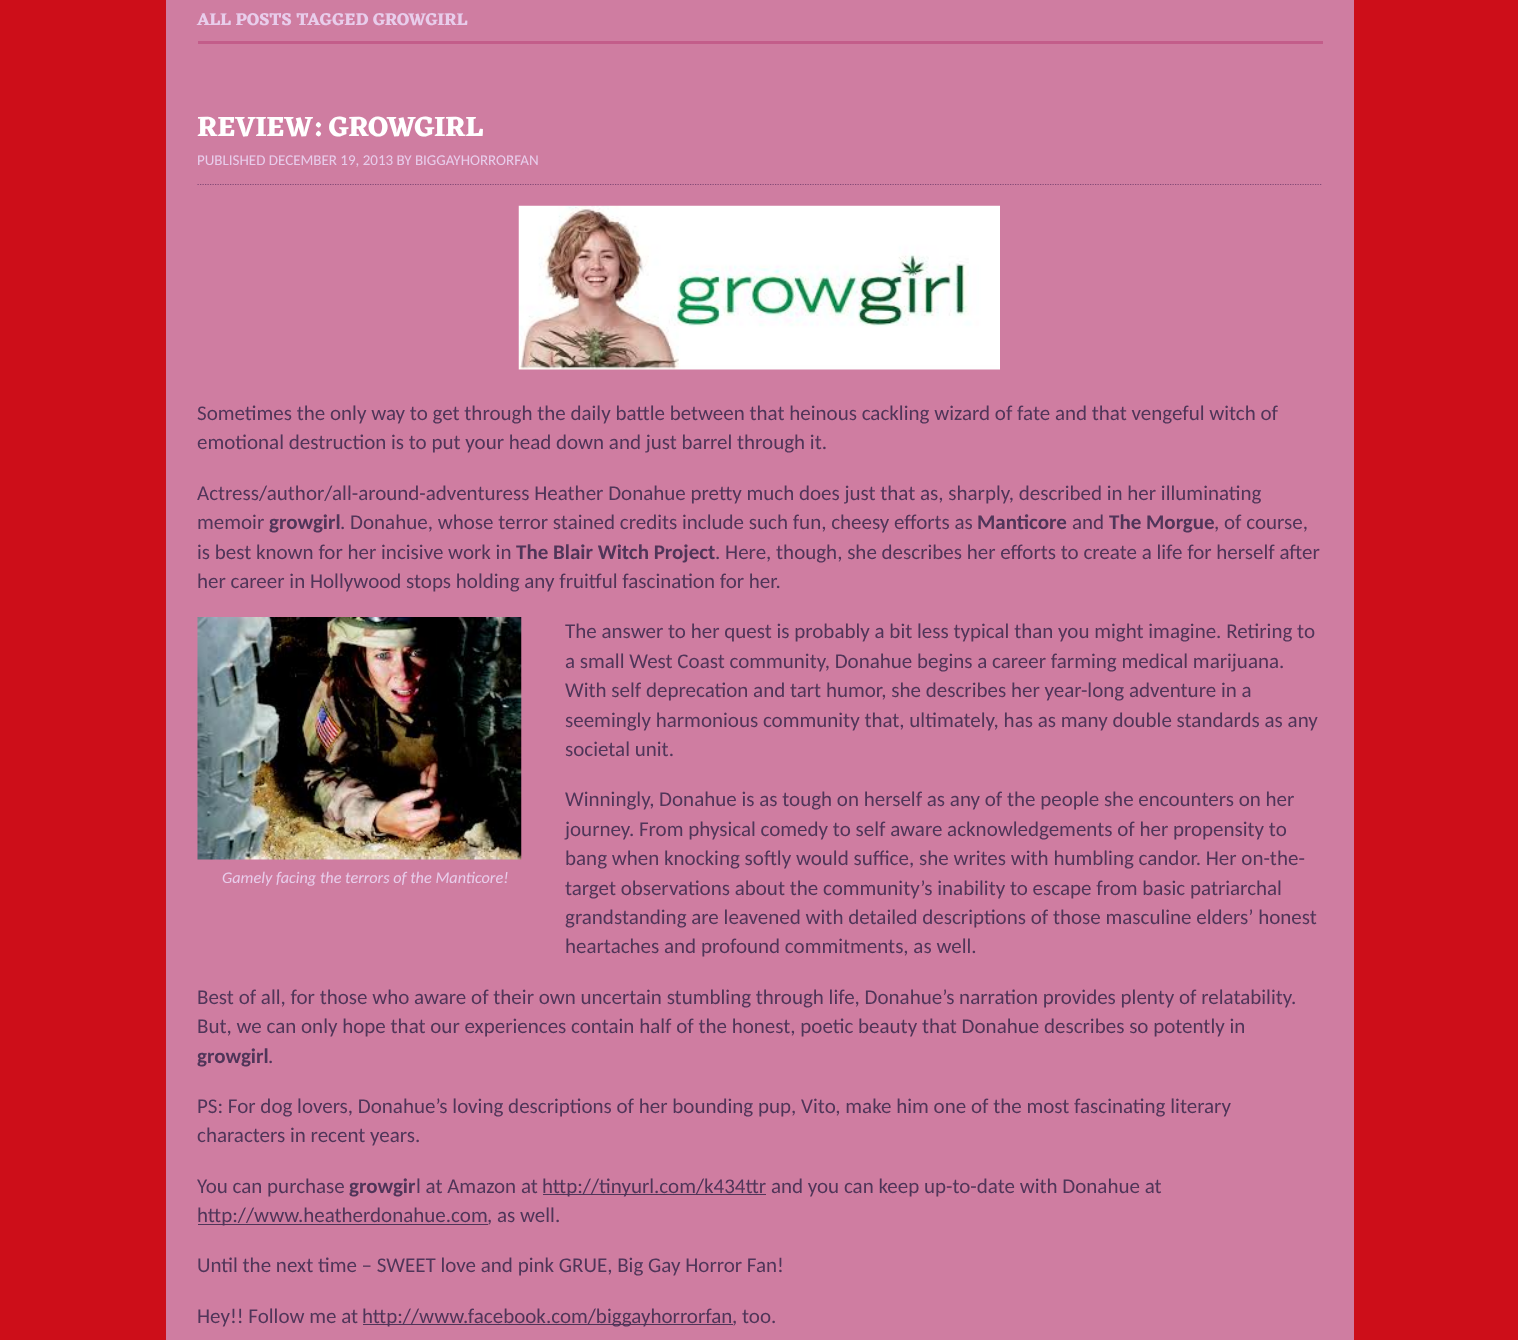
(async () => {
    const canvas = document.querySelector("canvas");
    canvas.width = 1518;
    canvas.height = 1340;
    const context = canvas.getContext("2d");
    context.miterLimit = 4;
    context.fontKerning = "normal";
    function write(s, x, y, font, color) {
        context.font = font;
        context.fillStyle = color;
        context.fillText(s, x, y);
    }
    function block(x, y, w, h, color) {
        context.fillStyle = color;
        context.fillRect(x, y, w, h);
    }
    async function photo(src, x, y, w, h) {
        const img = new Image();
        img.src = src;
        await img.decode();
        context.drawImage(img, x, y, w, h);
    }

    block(0, 0, 1518, 1340, "rgb(205, 14, 25)");
    block(166, 0, 1188, 1340, "rgb(207, 125, 161)");
    block(198, 41, 1125, 3, "rgb(195, 93, 138)");
    write("ALL POSTS TAGGED GROWGIRL", 197, 25, "bold 17.5px Eczar", "rgb(232, 205, 235)");
    context.beginPath();
    context.moveTo(197.5, 184.5);
    context.lineTo(1322.5, 184.5);
    context.strokeStyle = "rgb(132, 74, 118)";
    context.lineWidth = 1.2;
    context.setLineDash([1.25, 1.25]);
    context.stroke();
    write("REVIEW: GROWGIRL", 197, 136, "bold 28.6px Eczar", "rgb(255, 255, 255)");
    write("PUBLISHED DECEMBER 19, 2013 BY BIGGAYHORRORFAN", 197, 165, "15px Carlito", "rgb(232, 205, 235)");
    await photo("media/1.png", 518, 205, 482, 165);
    write("Sometimes the only way to get through the daily battle between that heinous cackling wizard of fate and that vengeful witch of", 197, 420, "21px Carlito", "rgb(80, 53, 89)");
    write("emotional destruction is to put your head down and just barrel through it.", 197, 449, "21px Carlito", "rgb(80, 53, 89)");
    write("Actress/author/all-around-adventuress Heather Donahue pretty much does just that as, sharply, described in her illuminating", 197, 500, "21px Carlito", "rgb(80, 53, 89)");
    write("memoir", 197, 529, "21px Carlito", "rgb(80, 53, 89)");
    write("growgirl", 269, 529, "bold 21px Carlito", "rgb(80, 53, 89)");
    write(". Donahue, whose terror stained credits include such fun, cheesy efforts as", 340, 529, "21px Carlito", "rgb(80, 53, 89)");
    write("Manticore", 977, 529, "bold 21px Carlito", "rgb(80, 53, 89)");
    write("and", 1072, 529, "21px Carlito", "rgb(80, 53, 89)");
    write("The Morgue", 1109, 529, "bold 21px Carlito", "rgb(80, 53, 89)");
    write(", of course,", 1214, 529, "21px Carlito", "rgb(80, 53, 89)");
    write("is best known for her incisive work in", 197, 559, "21px Carlito", "rgb(80, 53, 89)");
    write("The Blair Witch Project", 516, 559, "bold 21px Carlito", "rgb(80, 53, 89)");
    write(". Here, though, she describes her efforts to create a life for herself after", 715, 559, "21px Carlito", "rgb(80, 53, 89)");
    write("her career in Hollywood stops holding any fruitful fascination for her.", 197, 588, "21px Carlito", "rgb(80, 53, 89)");
    write("The answer to her quest is probably a bit less typical than you might imagine. Retiring to", 565, 638, "21px Carlito", "rgb(80, 53, 89)");
    write("a small West Coast community, Donahue begins a career farming medical marijuana.", 565, 668, "21px Carlito", "rgb(80, 53, 89)");
    write("With self deprecation and tart humor, she describes her year-long adventure in a", 565, 697, "21px Carlito", "rgb(80, 53, 89)");
    write("seemingly harmonious community that, ultimately, has as many double standards as any", 565, 727, "21px Carlito", "rgb(80, 53, 89)");
    write("societal unit.", 565, 756, "21px Carlito", "rgb(80, 53, 89)");
    await photo("media/2.png", 197, 617, 325, 243);
    write("Gamely facing the terrors of the Manticore!", 222, 883, "italic 16.25px Carlito", "rgb(232, 205, 235)");
    write("Winningly, Donahue is as tough on herself as any of the people she encounters on her", 565, 806, "21px Carlito", "rgb(80, 53, 89)");
    write("journey. From physical comedy to self aware acknowledgements of her propensity to", 565, 836, "21px Carlito", "rgb(80, 53, 89)");
    write("bang when knocking softly would suffice, she writes with humbling candor. Her on-the-", 565, 865, "21px Carlito", "rgb(80, 53, 89)");
    write("target observations about the community’s inability to escape from basic patriarchal", 565, 895, "21px Carlito", "rgb(80, 53, 89)");
    write("grandstanding are leavened with detailed descriptions of those masculine elders’ honest", 565, 924, "21px Carlito", "rgb(80, 53, 89)");
    write("heartaches and profound commitments, as well.", 565, 953, "21px Carlito", "rgb(80, 53, 89)");
    write("Best of all, for those who aware of their own uncertain stumbling through life, Donahue’s narration provides plenty of relatability.", 197, 1004, "21px Carlito", "rgb(80, 53, 89)");
    write("But, we can only hope that our experiences contain half of the honest, poetic beauty that Donahue describes so potently in", 197, 1033, "21px Carlito", "rgb(80, 53, 89)");
    write("growgirl", 197, 1063, "bold 21px Carlito", "rgb(80, 53, 89)");
    write(".", 268, 1063, "21px Carlito", "rgb(80, 53, 89)");
    write("PS: For dog lovers, Donahue’s loving descriptions of her bounding pup, Vito, make him one of the most fascinating literary", 197, 1113, "21px Carlito", "rgb(80, 53, 89)");
    write("characters in recent years.", 197, 1142, "21px Carlito", "rgb(80, 53, 89)");
    write("You can purchase", 197, 1193, "21px Carlito", "rgb(80, 53, 89)");
    write("growgir", 349, 1193, "bold 21px Carlito", "rgb(80, 53, 89)");
    write("l at Amazon at", 416, 1193, "21px Carlito", "rgb(80, 53, 89)");
    block(543, 1194, 223, 1, "rgb(80, 53, 89)");
    write("http://tinyurl.com/k434ttr and you can keep up-to-date with Donahue at", 542, 1193, "21px Carlito", "rgb(80, 53, 89)");
    block(198, 1224, 290, 1, "rgb(80, 53, 89)");
    write("http://www.heatherdonahue.com", 197, 1222, "21px Carlito", "rgb(80, 53, 89)");
    write(", as well.", 487, 1222, "21px Carlito", "rgb(80, 53, 89)");
    write("Until the next time – SWEET love and pink GRUE, Big Gay Horror Fan!", 197, 1272, "21px Carlito", "rgb(80, 53, 89)");
    write("Hey!! Follow me at", 197, 1323, "21px Carlito", "rgb(80, 53, 89)");
    block(363, 1324, 370, 1, "rgb(80, 53, 89)");
    write("http://www.facebook.com/biggayhorrorfan", 362, 1323, "21px Carlito", "rgb(80, 53, 89)");
    write(", too.", 732, 1323, "21px Carlito", "rgb(80, 53, 89)");
})();
